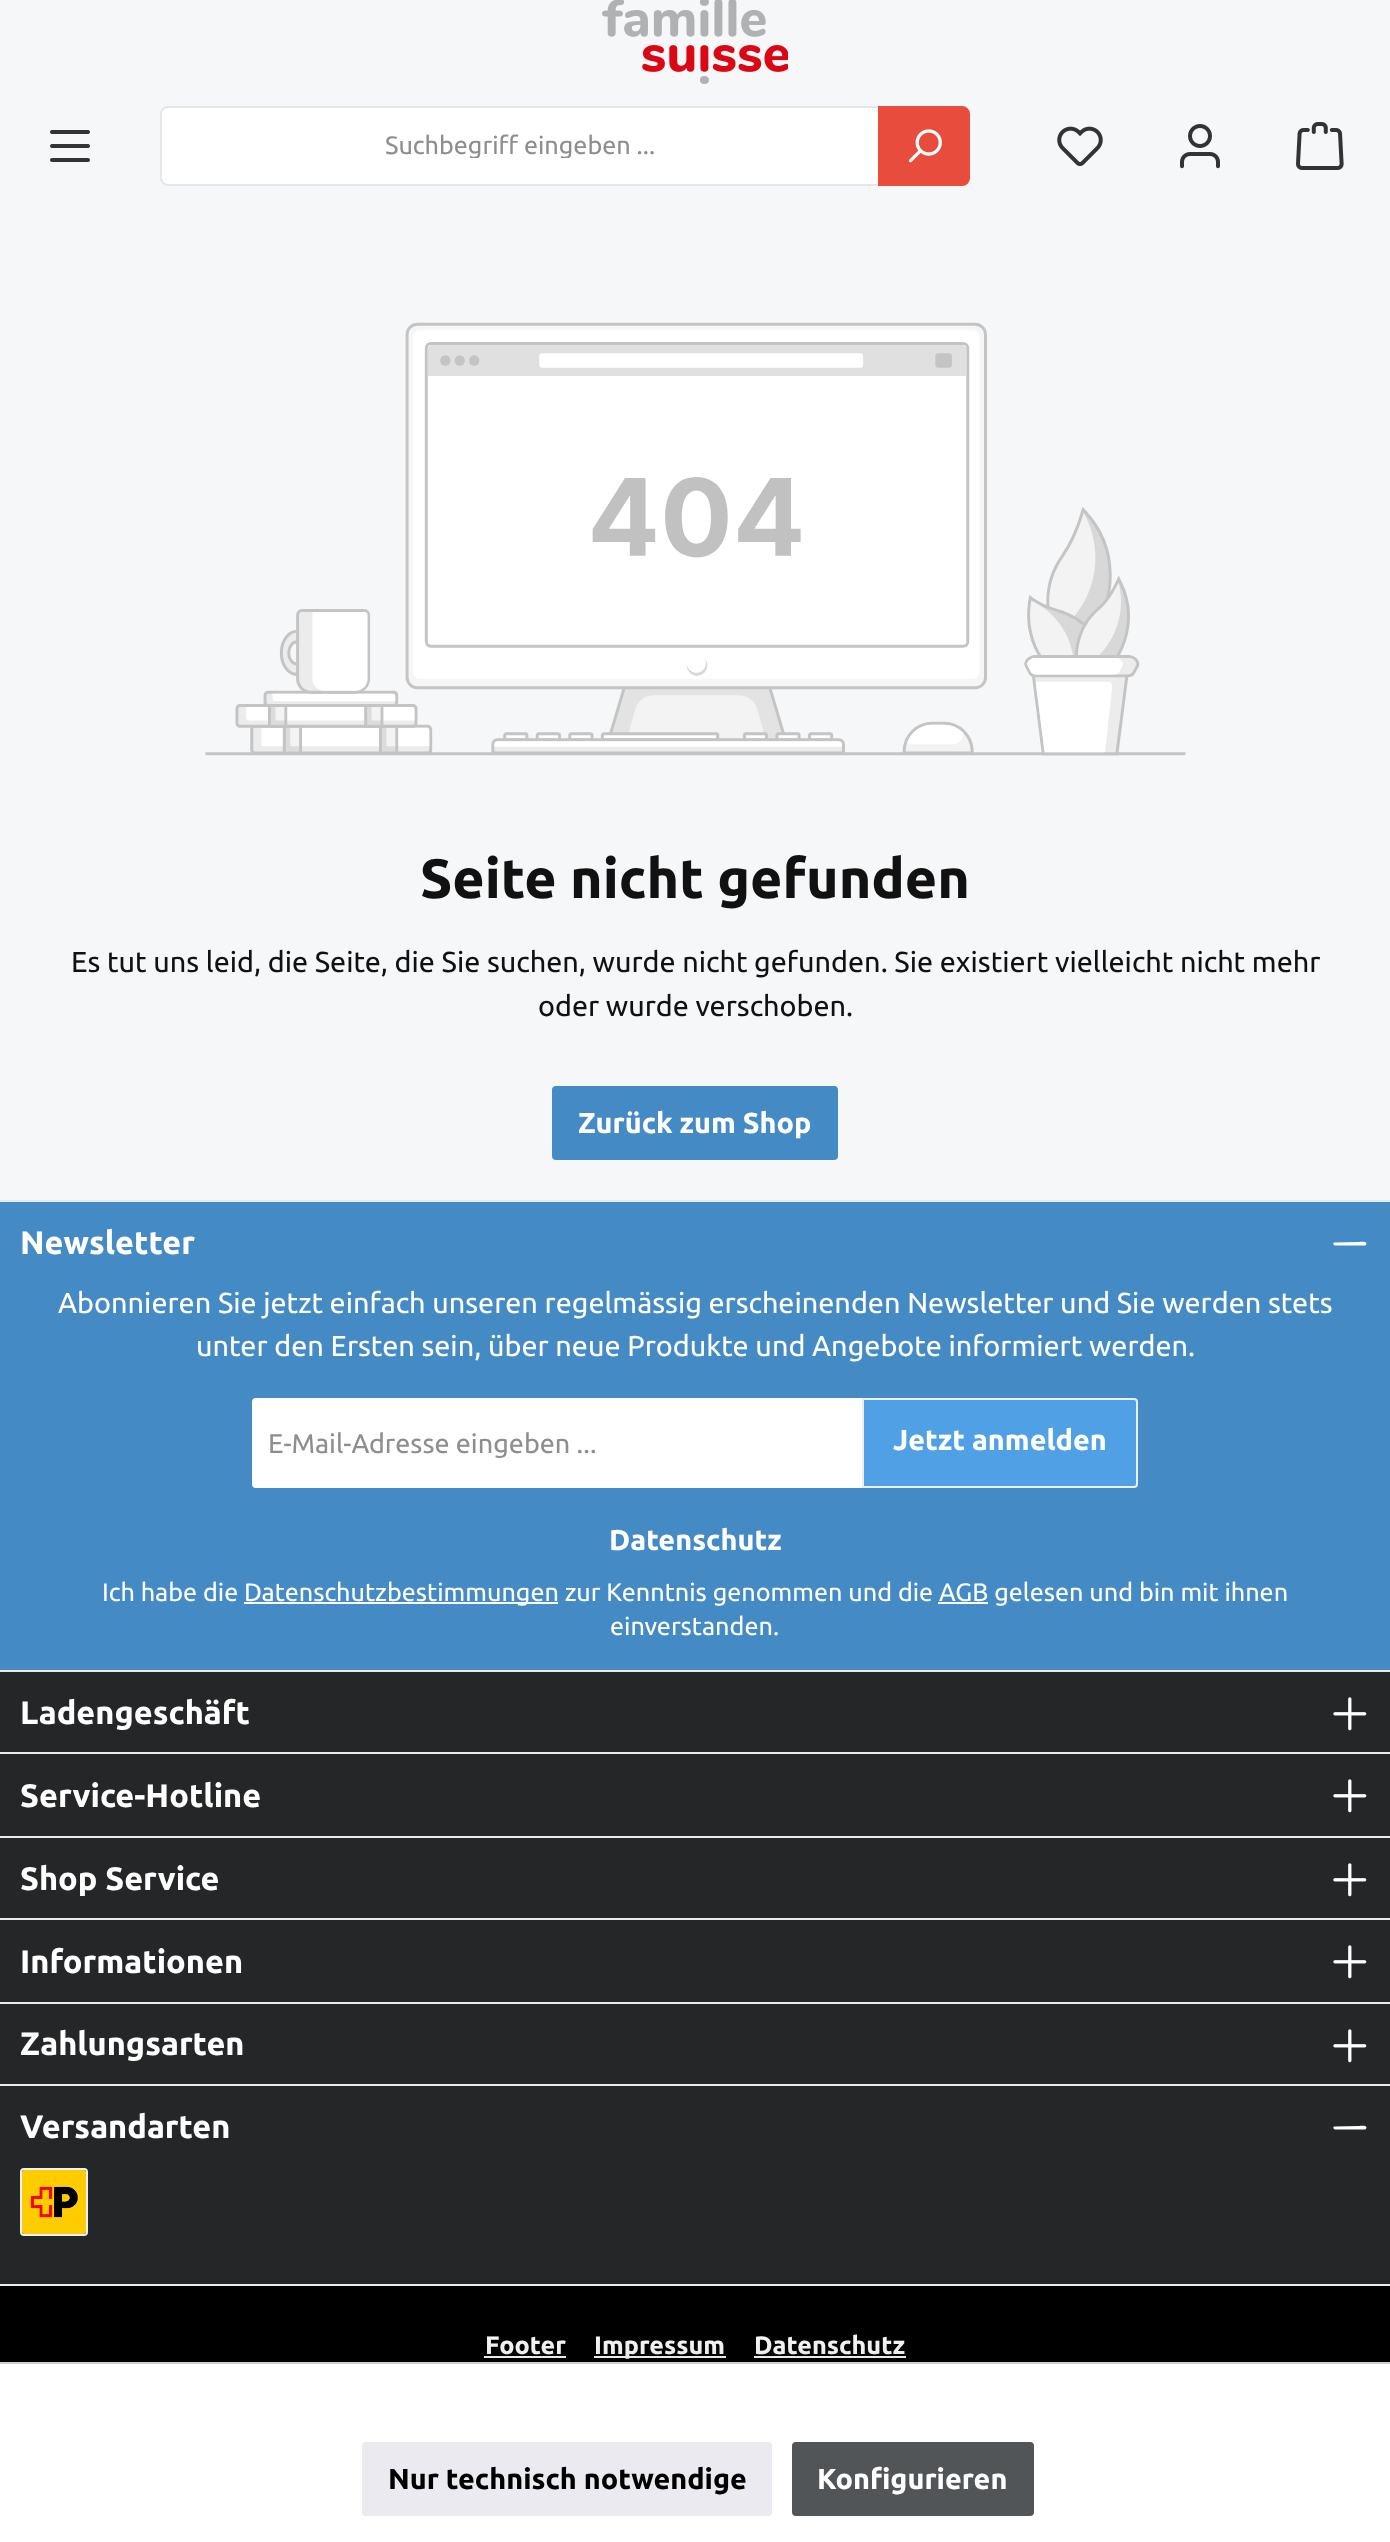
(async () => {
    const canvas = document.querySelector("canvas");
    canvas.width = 1390;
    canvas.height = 2542;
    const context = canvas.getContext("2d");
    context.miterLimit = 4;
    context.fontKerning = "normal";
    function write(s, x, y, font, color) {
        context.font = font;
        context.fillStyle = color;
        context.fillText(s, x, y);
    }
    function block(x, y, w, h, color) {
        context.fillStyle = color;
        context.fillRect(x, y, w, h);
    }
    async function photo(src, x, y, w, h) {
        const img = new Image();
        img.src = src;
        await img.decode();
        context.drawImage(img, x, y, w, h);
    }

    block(0, 0, 1390, 2542, "rgb(245, 247, 249)");
    await photo("media/1.png", 602, 0, 186, 84);
    await photo("media/2.png", 50, 130, 40, 32);
    context.fillStyle = "rgb(255, 255, 255)";
    context.beginPath();
    context.roundRect(161, 107, 718, 78, [7, 0, 0, 7]);
    context.fill();
    context.strokeStyle = "rgb(228, 231, 234)";
    context.lineWidth = 2;
    context.stroke();
    context.save();
    context.beginPath();
    context.rect(178, 130, 684, 28);
    context.clip();
    write("Suchbegriff eingeben ...", 385, 154, "25.2px Ubuntu", "rgb(142, 142, 142)");
    context.restore();
    context.fillStyle = "rgb(231, 76, 60)";
    context.beginPath();
    context.roundRect(879, 107, 90, 78, [0, 7, 7, 0]);
    context.fill();
    context.strokeStyle = "rgb(231, 76, 60)";
    context.stroke();
    await photo("media/3.png", 909, 129, 33, 34);
    await photo("media/4.png", 1057, 126, 46, 40);
    await photo("media/5.png", 1180, 124, 40, 45);
    await photo("media/6.png", 1296, 122, 48, 48);
    await photo("media/7.png", 205, 322, 981, 434);
    write("Seite nicht gefunden", 420, 898, "bold 55.5px Ubuntu", "rgb(17, 17, 17)");
    write("Es tut uns leid, die Seite, die Sie suchen, wurde nicht gefunden. Sie existiert vielleicht nicht mehr", 71, 972, "28.8px Ubuntu", "rgb(17, 17, 17)");
    write("oder wurde verschoben.", 538, 1016, "28.8px Ubuntu", "rgb(17, 17, 17)");
    context.fillStyle = "rgb(68, 139, 198)";
    context.beginPath();
    context.roundRect(553, 1087, 284, 72, 3);
    context.fill();
    context.strokeStyle = "rgb(68, 139, 198)";
    context.stroke();
    write("Zurück zum Shop", 578, 1133, "bold 28.8px Ubuntu", "rgb(255, 255, 255)");
    block(0, 1672, 1390, 612, "rgb(37, 38, 40)");
    block(0, 1202, 1390, 468, "rgb(68, 139, 198)");
    block(0, 1200, 1390, 2, "rgb(234, 234, 240)");
    block(0, 1670, 1390, 2, "rgb(234, 234, 240)");
    write("Newsletter", 20, 1254, "bold 32.5px Ubuntu", "rgb(255, 255, 255)");
    context.beginPath();
    context.moveTo(1335, 1245.5);
    context.lineTo(1365, 1245.5);
    context.lineTo(1366, 1245);
    context.lineTo(1366.5, 1243.5);
    context.bezierCurveTo(1366, 1241, 1360, 1242, 1359.5, 1242);
    context.lineTo(1334.5, 1242.5);
    context.bezierCurveTo(1333, 1242.5, 1333, 1244, 1334, 1245);
    context.closePath();
    context.fill("evenodd");
    write("Abonnieren Sie jetzt einfach unseren regelmässig erscheinenden Newsletter und Sie werden stets", 58, 1313, "28.8px Ubuntu", "rgb(255, 255, 255)");
    write("unter den Ersten sein, über neue Produkte und Angebote informiert werden.", 196, 1356, "28.8px Ubuntu", "rgb(255, 255, 255)");
    context.beginPath();
    context.roundRect(252, 1398, 610, 90, [4, 0, 0, 4]);
    context.fill();
    write("E-Mail-Adresse eingeben ...", 268, 1453, "27px Ubuntu", "rgb(142, 142, 142)");
    context.fillStyle = "rgb(79, 160, 229)";
    context.beginPath();
    context.roundRect(863, 1399, 274, 88, [0, 3, 3, 0]);
    context.fill();
    context.strokeStyle = "rgb(238, 238, 238)";
    context.stroke();
    write("Jetzt anmelden", 893, 1450, "bold 28.8px Ubuntu", "rgb(255, 255, 255)");
    write("Datenschutz", 609, 1550, "bold 28.8px Ubuntu", "rgb(255, 255, 255)");
    write("Ich habe die", 102, 1601, "25.2px Ubuntu", "rgb(255, 255, 255)");
    block(244, 1602, 314, 2, "rgb(255, 255, 255)");
    write("Datenschutzbestimmungen zur Kenntnis genommen und die AGB gelesen und bin mit ihnen", 244, 1601, "25.2px Ubuntu", "rgb(255, 255, 255)");
    block(938, 1602, 50, 2, "rgb(255, 255, 255)");
    write("einverstanden.", 610, 1635, "25.2px Ubuntu", "rgb(255, 255, 255)");
    block(0, 1752, 1390, 2, "rgb(234, 234, 240)");
    write("Ladengeschäft", 20, 1724, "bold 32.5px Ubuntu", "rgb(255, 255, 255)");
    await photo("media/8.png", 1333, 1697, 34, 34);
    block(0, 1836, 1390, 2, "rgb(234, 234, 240)");
    write("Service-Hotline", 20, 1807, "bold 32.5px Ubuntu", "rgb(255, 255, 255)");
    await photo("media/8.png", 1333, 1779, 34, 34);
    block(0, 1918, 1390, 2, "rgb(234, 234, 240)");
    write("Shop Service", 20, 1890, "bold 32.5px Ubuntu", "rgb(255, 255, 255)");
    await photo("media/8.png", 1333, 1863, 34, 34);
    block(0, 2002, 1390, 2, "rgb(234, 234, 240)");
    write("Informationen", 20, 1973, "bold 32.5px Ubuntu", "rgb(255, 255, 255)");
    await photo("media/8.png", 1333, 1945, 34, 34);
    block(0, 2084, 1390, 2, "rgb(234, 234, 240)");
    write("Zahlungsarten", 20, 2055, "bold 32.5px Ubuntu", "rgb(255, 255, 255)");
    await photo("media/8.png", 1333, 2029, 34, 34);
    block(0, 2284, 1390, 2, "rgb(234, 234, 240)");
    write("Versandarten", 20, 2138, "bold 32.5px Ubuntu", "rgb(255, 255, 255)");
    context.beginPath();
    context.moveTo(1335, 2129.5);
    context.lineTo(1365, 2129.5);
    context.lineTo(1366, 2129);
    context.lineTo(1366.5, 2127.5);
    context.bezierCurveTo(1366, 2125, 1360, 2126, 1359.5, 2126);
    context.lineTo(1334.5, 2126.5);
    context.bezierCurveTo(1333, 2126.5, 1333, 2128, 1334, 2129);
    context.closePath();
    context.fill("evenodd");
    context.beginPath();
    context.roundRect(21, 2169, 66, 66, 3);
    context.strokeStyle = "rgb(233, 242, 249)";
    context.stroke();
    await photo("media/9.png", 22, 2170, 64, 64);
    block(0, 2286, 1390, 76, "rgb(0, 0, 0)");
    write("Footer", 485, 2354, "bold 25.2px Ubuntu", "rgb(255, 255, 255)");
    block(484, 2356, 82, 2, "rgb(255, 255, 255)");
    block(594, 2356, 132, 2, "rgb(255, 255, 255)");
    write("Impressum", 594, 2354, "bold 25.2px Ubuntu", "rgb(255, 255, 255)");
    write("Datenschutz", 754, 2354, "bold 25.2px Ubuntu", "rgb(255, 255, 255)");
    block(754, 2356, 152, 2, "rgb(255, 255, 255)");
    context.fillStyle = "rgba(0, 0, 0, 0.2)";
    context.filter = "blur(30px)";
    context.beginPath();
    context.rect(0, 2362, 1390, 180);
    context.fill();
    context.filter = "none";
    block(0, 2364, 1390, 178, "rgb(255, 255, 255)");
    block(0, 2362, 1390, 2, "rgb(204, 204, 204)");
    context.fillStyle = "rgb(234, 234, 240)";
    context.beginPath();
    context.roundRect(363, 2443, 408, 72, 3);
    context.fill();
    context.strokeStyle = "rgb(234, 234, 240)";
    context.stroke();
    write("Nur technisch notwendige", 388, 2489, "bold 28.8px Ubuntu", "rgb(0, 0, 0)");
    context.fillStyle = "rgb(82, 85, 88)";
    context.beginPath();
    context.roundRect(793, 2443, 240, 72, 3);
    context.fill();
    context.strokeStyle = "rgb(82, 85, 88)";
    context.stroke();
    write("Konfigurieren", 817, 2489, "bold 28.8px Ubuntu", "rgb(255, 255, 255)");
})();
